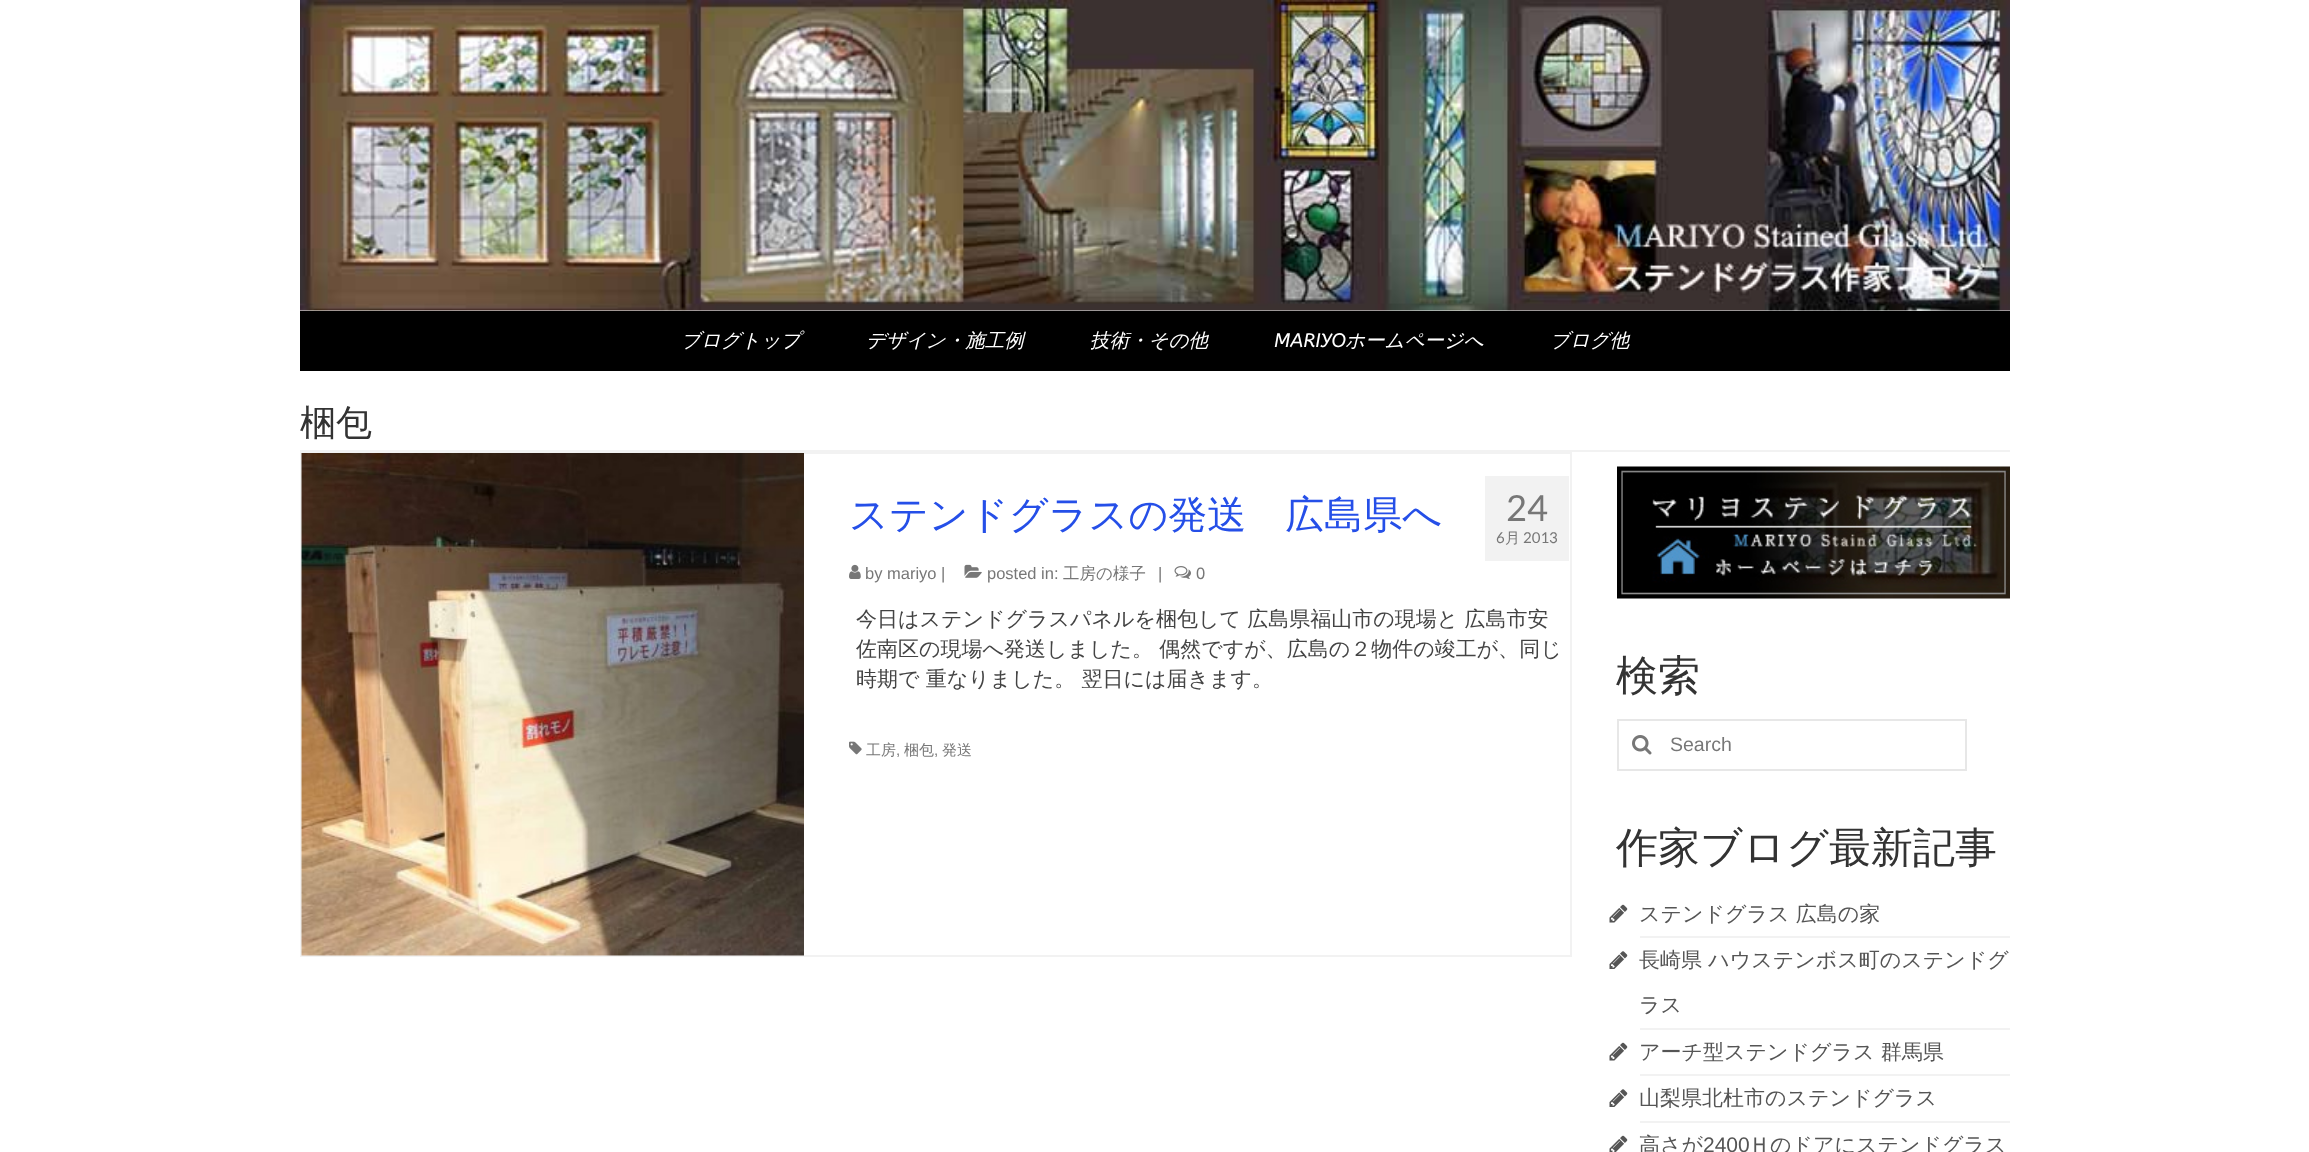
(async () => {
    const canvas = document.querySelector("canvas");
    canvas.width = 2309;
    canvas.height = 1152;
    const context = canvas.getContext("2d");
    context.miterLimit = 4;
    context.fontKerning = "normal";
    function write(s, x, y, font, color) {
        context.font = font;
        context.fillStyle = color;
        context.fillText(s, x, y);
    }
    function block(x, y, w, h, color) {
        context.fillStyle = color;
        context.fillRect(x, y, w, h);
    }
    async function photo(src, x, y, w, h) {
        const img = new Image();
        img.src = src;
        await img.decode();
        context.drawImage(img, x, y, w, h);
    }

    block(0, 0, 2309, 1152, "rgb(255, 255, 255)");
    await photo("media/1.png", 300, 0, 1710, 311);
    block(300, 311, 1710, 60, "rgb(0, 0, 0)");
    write("ブログトップ", 681, 347, "italic 500 19.5px WenQuanYi Zen Hei", "rgb(255, 255, 255)");
    write("デザイン・施工例", 866, 347, "italic 500 19.5px WenQuanYi Zen Hei", "rgb(255, 255, 255)");
    write("技術・その他", 1090, 347, "italic 500 19.5px WenQuanYi Zen Hei", "rgb(255, 255, 255)");
    write("MARIYO", 1274, 347, "italic 19.5px ABeeZee", "rgb(255, 255, 255)");
    write("ホームページへ", 1345, 347, "italic 500 19.5px WenQuanYi Zen Hei", "rgb(255, 255, 255)");
    write("ブログ他", 1550, 347, "italic 500 19.5px WenQuanYi Zen Hei", "rgb(255, 255, 255)");
    block(300, 450, 1710, 2, "rgb(242, 242, 242)");
    write("梱包", 300, 435, "500 36px WenQuanYi Zen Hei", "rgb(51, 51, 51)");
    context.strokeStyle = "rgb(242, 242, 242)";
    context.lineWidth = 2;
    context.strokeRect(301, 453, 1270, 503);
    await photo("media/2.png", 301, 453, 503, 503);
    write("ステンドグラスの発送　広島県へ", 849, 528, "500 39px WenQuanYi Zen Hei", "rgb(37, 79, 232)");
    await photo("media/3.png", 849, 564, 12, 15);
    write("by mariyo |", 865, 579, "16.5px Liberation Sans", "rgb(119, 119, 119)");
    await photo("media/4.png", 964, 564, 18, 14);
    write("posted in:", 987, 579, "16.5px Liberation Sans", "rgb(119, 119, 119)");
    write("工房の様子", 1063, 579, "500 16.5px WenQuanYi Zen Hei", "rgb(119, 119, 119)");
    write("|", 1158, 579, "16.5px Liberation Sans", "rgb(119, 119, 119)");
    await photo("media/5.png", 1174, 566, 17, 13);
    write("0", 1196, 579, "16.5px Liberation Sans", "rgb(119, 119, 119)");
    block(1485, 476, 84, 85, "rgb(242, 242, 242)");
    write("24", 1506, 521, "36px Lato", "rgb(119, 119, 119)");
    write("6", 1496, 543, "15px Lato", "rgb(119, 119, 119)");
    write("月", 1505, 543, "500 15px WenQuanYi Zen Hei", "rgb(119, 119, 119)");
    write("2013", 1523, 543, "15px Lato", "rgb(119, 119, 119)");
    write("今日はステンドグラスパネルを梱包して 広島県福山市の現場と 広島市安", 856, 626, "500 21px WenQuanYi Zen Hei", "rgb(68, 68, 68)");
    write("佐南区の現場へ発送しました。 偶然ですが、広島の２物件の竣工が、同じ", 856, 656, "500 21px WenQuanYi Zen Hei", "rgb(68, 68, 68)");
    write("時期で 重なりました。 翌日には届きます。", 856, 686, "500 21px WenQuanYi Zen Hei", "rgb(68, 68, 68)");
    await photo("media/6.png", 849, 741, 13, 14);
    write("工房", 866, 755, "500 15px WenQuanYi Zen Hei", "rgb(119, 119, 119)");
    write(",", 896, 755, "15px Liberation Sans", "rgb(119, 119, 119)");
    write("梱包", 904, 755, "500 15px WenQuanYi Zen Hei", "rgb(119, 119, 119)");
    write(",", 934, 755, "15px Liberation Sans", "rgb(119, 119, 119)");
    write("発送", 942, 755, "500 15px WenQuanYi Zen Hei", "rgb(119, 119, 119)");
    await photo("media/7.png", 1617, 466, 393, 133);
    write("検索", 1616, 690, "500 42px WenQuanYi Zen Hei", "rgb(51, 51, 51)");
    context.strokeStyle = "rgb(231, 231, 231)";
    context.strokeRect(1618, 720, 348, 50);
    await photo("media/8.png", 1632, 735, 20, 20);
    write("Search", 1670, 751, "19.5px Liberation Sans", "rgb(119, 119, 119)");
    write("作家ブログ最新記事", 1616, 862, "500 42px WenQuanYi Zen Hei", "rgb(51, 51, 51)");
    block(1640, 936, 370, 2, "rgb(242, 242, 242)");
    await photo("media/9.png", 1609, 904, 19, 19);
    write("ステンドグラス 広島の家", 1639, 921, "500 21px WenQuanYi Zen Hei", "rgb(85, 85, 85)");
    block(1640, 1028, 370, 2, "rgb(242, 242, 242)");
    await photo("media/10.png", 1609, 951, 19, 18);
    write("長崎県 ハウステンボス町のステンドグ", 1639, 967, "500 21px WenQuanYi Zen Hei", "rgb(85, 85, 85)");
    write("ラス", 1639, 1012, "500 21px WenQuanYi Zen Hei", "rgb(85, 85, 85)");
    block(1640, 1074, 370, 2, "rgb(242, 242, 242)");
    await photo("media/9.png", 1609, 1042, 19, 19);
    write("アーチ型ステンドグラス 群馬県", 1639, 1059, "500 21px WenQuanYi Zen Hei", "rgb(85, 85, 85)");
    block(1640, 1121, 370, 2, "rgb(242, 242, 242)");
    await photo("media/10.png", 1609, 1089, 19, 18);
    write("山梨県北杜市のステンドグラス", 1639, 1105, "500 21px WenQuanYi Zen Hei", "rgb(85, 85, 85)");
    await photo("media/11.png", 1609, 1135, 19, 17);
    write("高さが", 1639, 1152, "500 21px WenQuanYi Zen Hei", "rgb(85, 85, 85)");
    write("2400", 1703, 1152, "21px Liberation Sans", "rgb(85, 85, 85)");
    write("Ｈのドアにステンドグラス", 1749, 1152, "500 21px WenQuanYi Zen Hei", "rgb(85, 85, 85)");
})();
